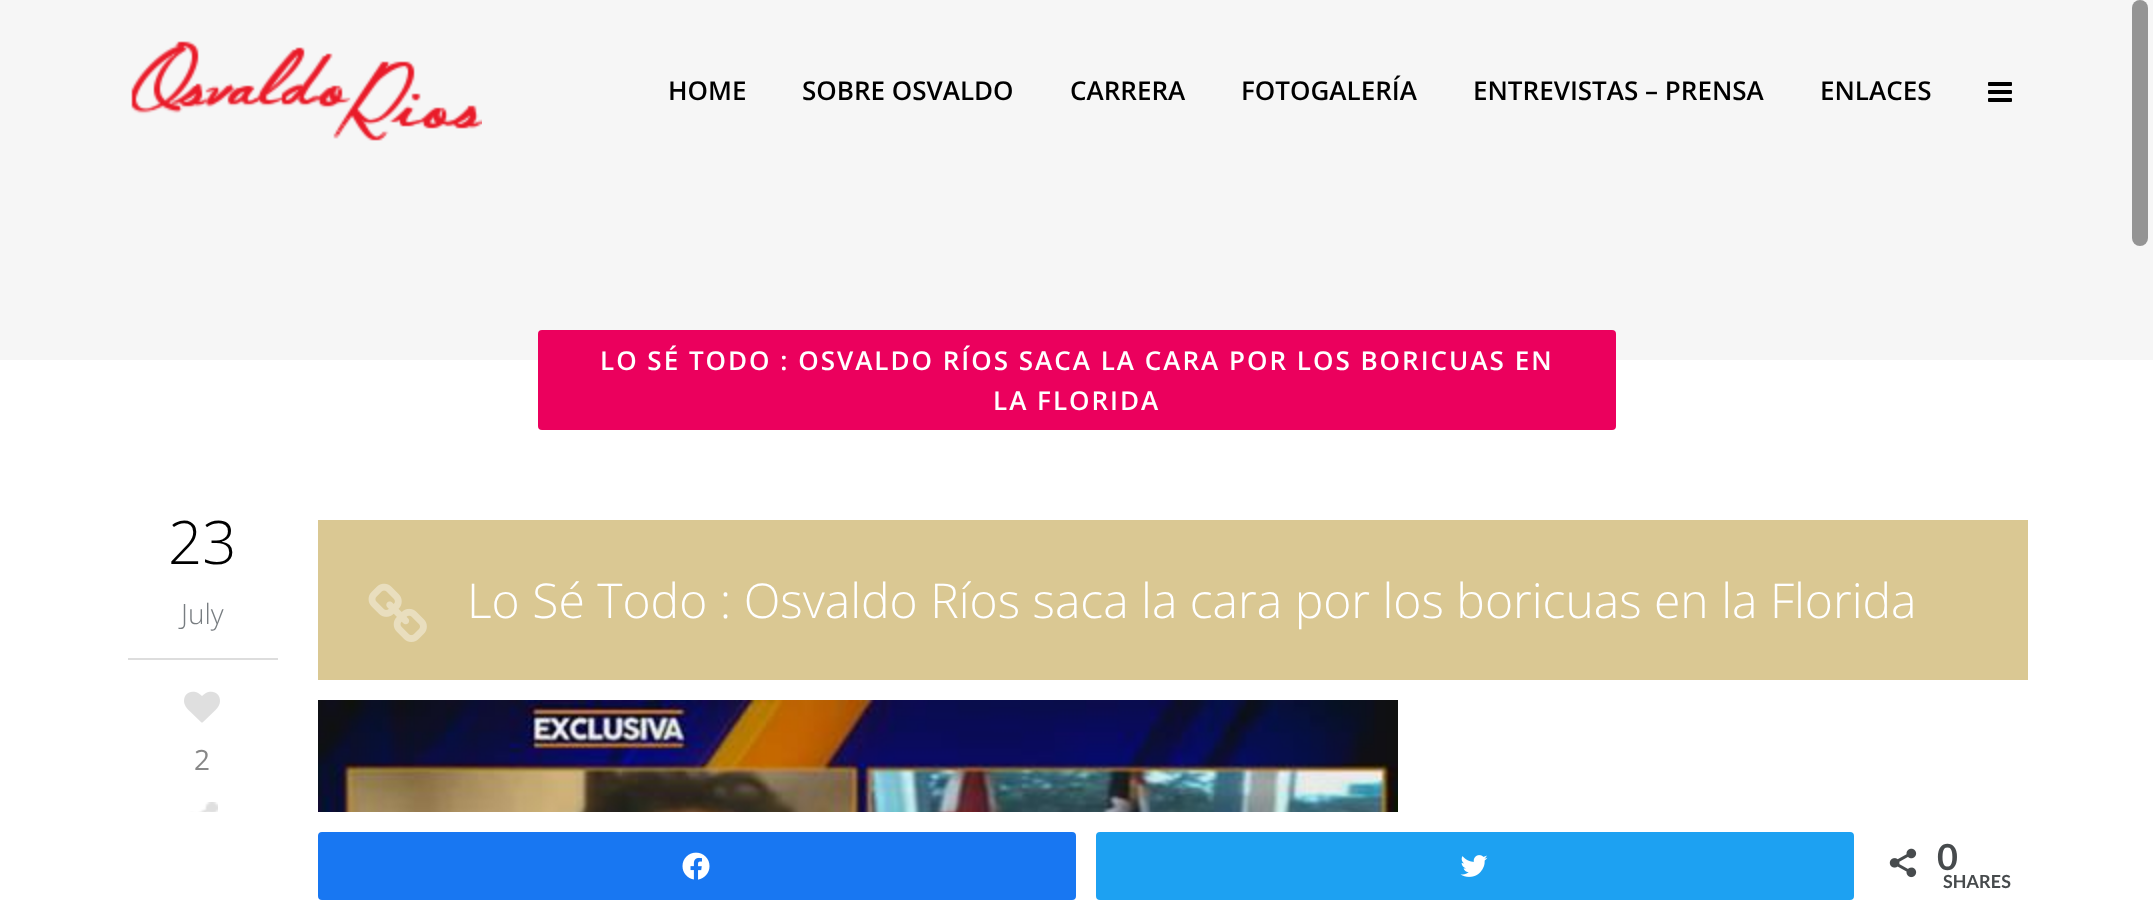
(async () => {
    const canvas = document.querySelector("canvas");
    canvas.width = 2153;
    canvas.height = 919;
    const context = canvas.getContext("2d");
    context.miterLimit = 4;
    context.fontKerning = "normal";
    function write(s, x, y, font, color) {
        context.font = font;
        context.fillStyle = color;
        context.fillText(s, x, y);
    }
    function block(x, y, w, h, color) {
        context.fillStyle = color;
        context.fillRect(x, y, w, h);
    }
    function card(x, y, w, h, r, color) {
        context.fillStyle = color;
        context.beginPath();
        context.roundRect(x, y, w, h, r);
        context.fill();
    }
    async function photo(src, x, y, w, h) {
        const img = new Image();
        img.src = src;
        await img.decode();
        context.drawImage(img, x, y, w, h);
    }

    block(0, 0, 2153, 919, "rgb(255, 255, 255)");
    block(0, 0, 2153, 360, "rgb(246, 246, 246)");
    await photo("media/1.png", 131, 41, 351, 100);
    write("HOME", 668, 100, "600 26px Open Sans", "rgb(0, 0, 0)");
    write("SOBRE OSVALDO", 802, 100, "600 26px Open Sans", "rgb(0, 0, 0)");
    write("CARRERA", 1070, 100, "600 26px Open Sans", "rgb(0, 0, 0)");
    write("FOTOGALERÍA", 1241, 100, "600 26px Open Sans", "rgb(0, 0, 0)");
    write("ENTREVISTAS – PRENSA", 1473, 100, "600 26px Open Sans", "rgb(0, 0, 0)");
    write("ENLACES", 1820, 100, "600 26px Open Sans", "rgb(0, 0, 0)");
    await photo("media/2.png", 1988, 82, 24, 20);
    card(538, 330, 1078, 100, 4, "rgb(235, 0, 93)");
    context.letterSpacing = "2px";
    write("LO SÉ TODO : OSVALDO RÍOS SACA LA CARA POR LOS BORICUAS EN", 600, 370, "600 26px Open Sans", "rgb(255, 255, 255)");
    write("LA FLORIDA", 993, 410, "600 26px Open Sans", "rgb(255, 255, 255)");
    block(128, 658, 150, 2, "rgb(221, 221, 221)");
    context.letterSpacing = "0px";
    write("23", 168, 564, "300 60px Open Sans", "rgb(0, 0, 0)");
    write("July", 181, 624, "300 28px Open Sans", "rgb(120, 125, 129)");
    await photo("media/3.png", 184, 691, 36, 32);
    write("2", 194, 770, "28px Open Sans", "rgb(136, 136, 136)");
    await photo("media/4.png", 189, 802, 29, 10);
    block(318, 520, 1710, 160, "rgb(218, 200, 147)");
    await photo("media/5.png", 368, 583, 59, 59);
    write("Lo Sé Todo : Osvaldo Ríos saca la cara por los boricuas en la Florida", 467, 618, "300 48px Open Sans", "rgb(255, 255, 255)");
    await photo("media/6.png", 318, 700, 1080, 112);
    card(2132, 0, 16, 246, 8, "rgb(148, 148, 148)");
    context.fillStyle = "rgb(24, 119, 242)";
    context.beginPath();
    context.roundRect(319, 833, 756, 66, 3);
    context.fill();
    context.strokeStyle = "rgb(24, 119, 242)";
    context.lineWidth = 2;
    context.stroke();
    await photo("media/7.png", 682, 852, 28, 28);
    context.fillStyle = "rgb(29, 161, 242)";
    context.beginPath();
    context.roundRect(1097, 833, 756, 66, 3);
    context.fill();
    context.strokeStyle = "rgb(29, 161, 242)";
    context.stroke();
    await photo("media/8.png", 1460, 855, 28, 22);
    await photo("media/9.png", 1889, 848, 28, 30);
    write("0", 1937, 870, "bold 36px Lato", "rgb(71, 75, 77)");
    write("SHARES", 1943, 888, "bold 18px Lato", "rgb(71, 75, 77)");
})();
